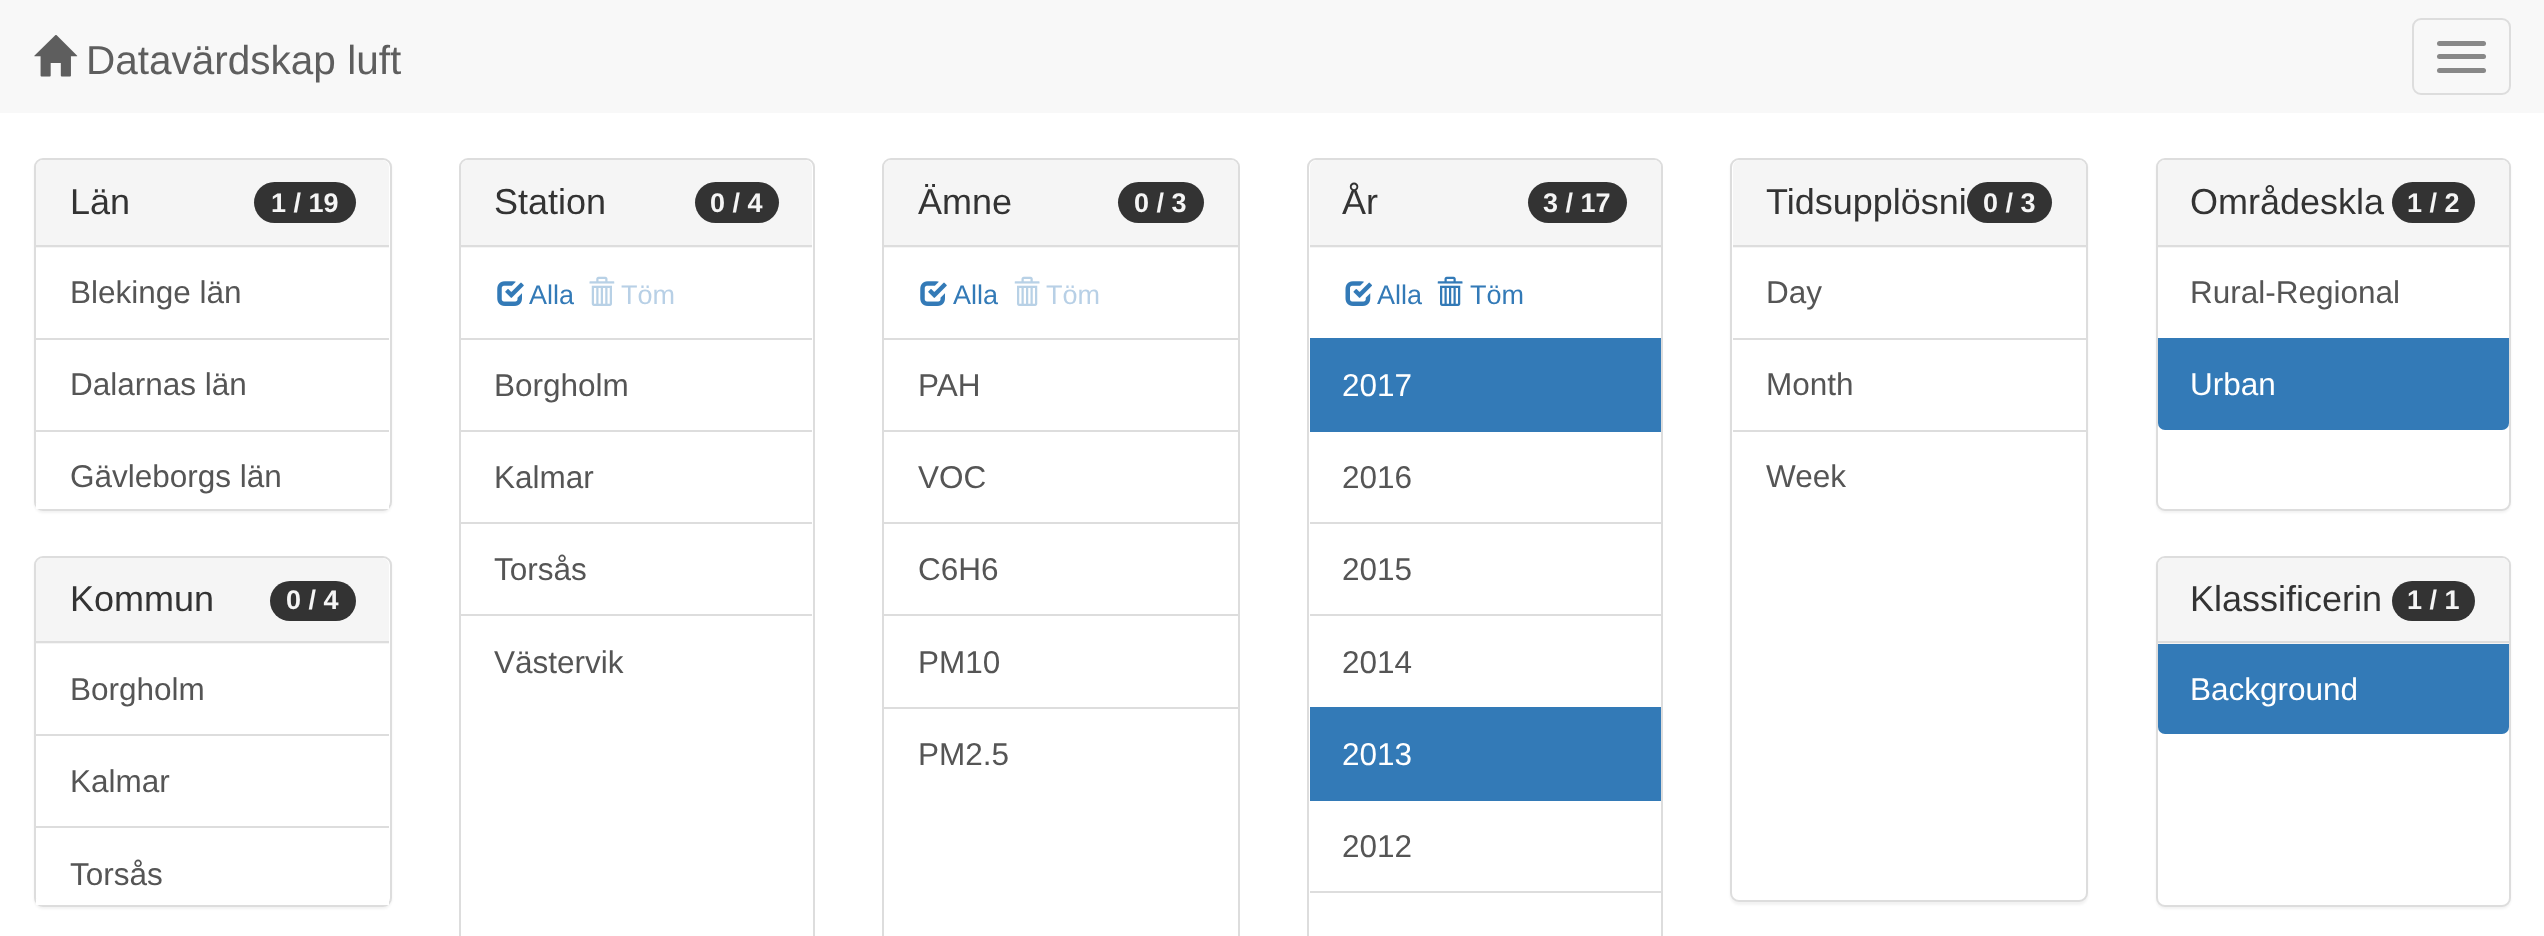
(async () => {
    const canvas = document.querySelector("canvas");
    canvas.width = 2544;
    canvas.height = 936;
    const context = canvas.getContext("2d");
    context.miterLimit = 4;
    context.fontKerning = "normal";
    function write(s, x, y, font, color) {
        context.font = font;
        context.fillStyle = color;
        context.fillText(s, x, y);
    }
    function block(x, y, w, h, color) {
        context.fillStyle = color;
        context.fillRect(x, y, w, h);
    }
    function card(x, y, w, h, r, color) {
        context.fillStyle = color;
        context.beginPath();
        context.roundRect(x, y, w, h, r);
        context.fill();
    }
    async function photo(src, x, y, w, h) {
        const img = new Image();
        img.src = src;
        await img.decode();
        context.drawImage(img, x, y, w, h);
    }

    block(0, 0, 2544, 936, "rgb(255, 255, 255)");
    block(0, 0, 2544, 113, "rgb(248, 248, 248)");
    await photo("media/1.png", 34, 35, 44, 42);
    write("Datavärdskap luft", 86, 74, "40.5px Liberation Sans", "rgb(94, 94, 94)");
    context.beginPath();
    context.roundRect(2413, 19, 97, 75, 8);
    context.strokeStyle = "rgb(221, 221, 221)";
    context.lineWidth = 2;
    context.stroke();
    card(2437, 41, 49, 5, 2.5, "rgb(136, 136, 136)");
    card(2437, 54, 49, 5, 2.5, "rgb(136, 136, 136)");
    card(2437, 68, 49, 5, 2.5, "rgb(136, 136, 136)");
    context.fillStyle = "rgba(0, 0, 0, 0.05)";
    context.filter = "blur(1px)";
    context.beginPath();
    context.roundRect(34, 160, 358, 353, 9);
    context.fill();
    context.filter = "none";
    context.fillStyle = "rgb(255, 255, 255)";
    context.beginPath();
    context.roundRect(35, 159, 356, 351, 8);
    context.fill();
    context.stroke();
    context.fillStyle = "rgb(245, 245, 245)";
    context.beginPath();
    context.roundRect(36, 160, 353, 88, [7, 7, 0, 0]);
    context.fill();
    block(36, 245, 353, 2, "rgb(221, 221, 221)");
    write("Län", 70, 214, "36px Liberation Sans", "rgb(51, 51, 51)");
    card(254, 182, 102, 41, 20.5, "rgb(51, 51, 51)");
    write("1 / 19", 271, 212, "bold 27px Liberation Sans", "rgb(245, 245, 245)");
    block(36, 338, 353, 2, "rgb(221, 221, 221)");
    write("Blekinge län", 70, 303, "31.5px Liberation Sans", "rgb(85, 85, 85)");
    block(36, 430, 353, 2, "rgb(221, 221, 221)");
    write("Dalarnas län", 70, 395, "31.5px Liberation Sans", "rgb(85, 85, 85)");
    block(36, 503, 353, 6, "rgb(255, 255, 255)");
    write("Gävleborgs län", 70, 487, "31.5px Liberation Sans", "rgb(85, 85, 85)");
    context.fillStyle = "rgba(0, 0, 0, 0.05)";
    context.filter = "blur(1px)";
    context.beginPath();
    context.roundRect(34, 558, 358, 351, 9);
    context.fill();
    context.filter = "none";
    context.fillStyle = "rgb(255, 255, 255)";
    context.beginPath();
    context.roundRect(35, 557, 356, 349, 8);
    context.fill();
    context.stroke();
    context.fillStyle = "rgb(245, 245, 245)";
    context.beginPath();
    context.roundRect(36, 558, 353, 86, [7, 7, 0, 0]);
    context.fill();
    block(36, 641, 353, 2, "rgb(221, 221, 221)");
    write("Kommun", 70, 611, "36px Liberation Sans", "rgb(51, 51, 51)");
    card(270, 581, 86, 40, 20, "rgb(51, 51, 51)");
    write("0 / 4", 286, 609, "bold 27px Liberation Sans", "rgb(245, 245, 245)");
    block(36, 734, 353, 2, "rgb(221, 221, 221)");
    write("Borgholm", 70, 700, "31.5px Liberation Sans", "rgb(85, 85, 85)");
    block(36, 826, 353, 2, "rgb(221, 221, 221)");
    write("Kalmar", 70, 792, "31.5px Liberation Sans", "rgb(85, 85, 85)");
    block(36, 899, 353, 6, "rgb(255, 255, 255)");
    write("Torsås", 70, 885, "31.5px Liberation Sans", "rgb(85, 85, 85)");
    context.beginPath();
    context.roundRect(460, 159, 354, 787, 8);
    context.stroke();
    context.fillStyle = "rgb(245, 245, 245)";
    context.beginPath();
    context.roundRect(461, 160, 351, 88, [7, 7, 0, 0]);
    context.fill();
    block(461, 245, 351, 2, "rgb(221, 221, 221)");
    write("Station", 494, 214, "36px Liberation Sans", "rgb(51, 51, 51)");
    card(695, 182, 84, 41, 20.5, "rgb(51, 51, 51)");
    write("0 / 4", 710, 212, "bold 27px Liberation Sans", "rgb(245, 245, 245)");
    await photo("media/2.png", 497, 281, 27, 25);
    write("Alla", 529, 304, "27px Liberation Sans", "rgb(51, 122, 183)");
    await photo("media/3.png", 589, 276, 26, 30);
    write("Töm", 621, 304, "27px Liberation Sans", "rgb(184, 208, 230)");
    block(461, 338, 351, 2, "rgb(221, 221, 221)");
    block(461, 430, 351, 2, "rgb(221, 221, 221)");
    write("Borgholm", 494, 396, "31.5px Liberation Sans", "rgb(85, 85, 85)");
    block(461, 522, 351, 2, "rgb(221, 221, 221)");
    write("Kalmar", 494, 488, "31.5px Liberation Sans", "rgb(85, 85, 85)");
    write("Torsås", 494, 580, "31.5px Liberation Sans", "rgb(85, 85, 85)");
    block(461, 614, 351, 2, "rgb(221, 221, 221)");
    write("Västervik", 494, 673, "31.5px Liberation Sans", "rgb(85, 85, 85)");
    context.beginPath();
    context.roundRect(883, 159, 356, 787, 8);
    context.stroke();
    context.fillStyle = "rgb(245, 245, 245)";
    context.beginPath();
    context.roundRect(884, 160, 354, 88, [7, 7, 0, 0]);
    context.fill();
    block(884, 245, 354, 2, "rgb(221, 221, 221)");
    write("Ämne", 918, 214, "36px Liberation Sans", "rgb(51, 51, 51)");
    card(1118, 182, 86, 41, 20.5, "rgb(51, 51, 51)");
    write("0 / 3", 1134, 212, "bold 27px Liberation Sans", "rgb(245, 245, 245)");
    await photo("media/2.png", 920, 281, 27, 25);
    write("Alla", 953, 304, "27px Liberation Sans", "rgb(51, 122, 183)");
    await photo("media/4.png", 1014, 276, 26, 30);
    write("Töm", 1046, 304, "27px Liberation Sans", "rgb(184, 208, 230)");
    block(884, 338, 354, 2, "rgb(221, 221, 221)");
    block(884, 430, 354, 2, "rgb(221, 221, 221)");
    write("PAH", 918, 396, "31.5px Liberation Sans", "rgb(85, 85, 85)");
    block(884, 522, 354, 2, "rgb(221, 221, 221)");
    write("VOC", 918, 488, "31.5px Liberation Sans", "rgb(85, 85, 85)");
    block(884, 614, 354, 2, "rgb(221, 221, 221)");
    write("C6H6", 918, 580, "31.5px Liberation Sans", "rgb(85, 85, 85)");
    write("PM10", 918, 673, "31.5px Liberation Sans", "rgb(85, 85, 85)");
    block(884, 707, 354, 2, "rgb(221, 221, 221)");
    write("PM2.5", 918, 765, "31.5px Liberation Sans", "rgb(85, 85, 85)");
    context.beginPath();
    context.roundRect(1308, 159, 354, 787, 8);
    context.stroke();
    context.fillStyle = "rgb(245, 245, 245)";
    context.beginPath();
    context.roundRect(1310, 160, 351, 88, [7, 7, 0, 0]);
    context.fill();
    block(1310, 245, 351, 2, "rgb(221, 221, 221)");
    write("År", 1342, 214, "36px Liberation Sans", "rgb(51, 51, 51)");
    card(1528, 182, 99, 41, 20.5, "rgb(51, 51, 51)");
    write("3 / 17", 1543, 212, "bold 27px Liberation Sans", "rgb(245, 245, 245)");
    await photo("media/5.png", 1345, 281, 27, 25);
    write("Alla", 1377, 304, "27px Liberation Sans", "rgb(51, 122, 183)");
    await photo("media/6.png", 1437, 276, 26, 30);
    write("Töm", 1470, 304, "27px Liberation Sans", "rgb(51, 122, 183)");
    block(1310, 338, 351, 94, "rgb(51, 122, 183)");
    write("2017", 1342, 396, "31.5px Liberation Sans", "rgb(255, 255, 255)");
    block(1310, 522, 351, 2, "rgb(221, 221, 221)");
    write("2016", 1342, 488, "31.5px Liberation Sans", "rgb(85, 85, 85)");
    block(1310, 614, 351, 2, "rgb(221, 221, 221)");
    write("2015", 1342, 580, "31.5px Liberation Sans", "rgb(85, 85, 85)");
    write("2014", 1342, 673, "31.5px Liberation Sans", "rgb(85, 85, 85)");
    block(1310, 707, 351, 94, "rgb(51, 122, 183)");
    write("2013", 1342, 765, "31.5px Liberation Sans", "rgb(255, 255, 255)");
    block(1310, 891, 351, 2, "rgb(221, 221, 221)");
    write("2012", 1342, 857, "31.5px Liberation Sans", "rgb(85, 85, 85)");
    context.fillStyle = "rgba(0, 0, 0, 0.05)";
    context.filter = "blur(1px)";
    context.beginPath();
    context.roundRect(1730, 160, 358, 745, 9);
    context.fill();
    context.filter = "none";
    context.fillStyle = "rgb(255, 255, 255)";
    context.beginPath();
    context.roundRect(1731, 159, 356, 742, 8);
    context.fill();
    context.stroke();
    context.fillStyle = "rgb(245, 245, 245)";
    context.beginPath();
    context.roundRect(1733, 160, 353, 88, [7, 7, 0, 0]);
    context.fill();
    block(1733, 245, 353, 2, "rgb(221, 221, 221)");
    write("Tidsupplösni", 1766, 214, "36px Liberation Sans", "rgb(51, 51, 51)");
    card(1967, 182, 85, 41, 20.5, "rgb(51, 51, 51)");
    write("0 / 3", 1983, 212, "bold 27px Liberation Sans", "rgb(245, 245, 245)");
    block(1733, 338, 353, 2, "rgb(221, 221, 221)");
    write("Day", 1766, 303, "31.5px Liberation Sans", "rgb(85, 85, 85)");
    write("Month", 1766, 395, "31.5px Liberation Sans", "rgb(85, 85, 85)");
    block(1733, 430, 353, 2, "rgb(221, 221, 221)");
    write("Week", 1766, 487, "31.5px Liberation Sans", "rgb(85, 85, 85)");
    context.fillStyle = "rgba(0, 0, 0, 0.05)";
    context.filter = "blur(1px)";
    context.beginPath();
    context.roundRect(2156, 160, 355, 353, 9);
    context.fill();
    context.filter = "none";
    context.fillStyle = "rgb(255, 255, 255)";
    context.beginPath();
    context.roundRect(2157, 159, 353, 351, 8);
    context.fill();
    context.stroke();
    context.fillStyle = "rgb(245, 245, 245)";
    context.beginPath();
    context.roundRect(2158, 160, 351, 88, [7, 7, 0, 0]);
    context.fill();
    block(2158, 245, 351, 2, "rgb(221, 221, 221)");
    write("Områdeskla", 2190, 214, "36px Liberation Sans", "rgb(51, 51, 51)");
    card(2392, 182, 83, 41, 20.5, "rgb(51, 51, 51)");
    write("1 / 2", 2407, 212, "bold 27px Liberation Sans", "rgb(245, 245, 245)");
    write("Rural-Regional", 2190, 303, "31.5px Liberation Sans", "rgb(85, 85, 85)");
    context.fillStyle = "rgb(51, 122, 183)";
    context.beginPath();
    context.roundRect(2158, 338, 351, 92, [0, 0, 7, 7]);
    context.fill();
    write("Urban", 2190, 395, "31.5px Liberation Sans", "rgb(255, 255, 255)");
    context.fillStyle = "rgba(0, 0, 0, 0.05)";
    context.filter = "blur(1px)";
    context.beginPath();
    context.roundRect(2156, 558, 355, 351, 9);
    context.fill();
    context.filter = "none";
    context.fillStyle = "rgb(255, 255, 255)";
    context.beginPath();
    context.roundRect(2157, 557, 353, 349, 8);
    context.fill();
    context.stroke();
    context.fillStyle = "rgb(245, 245, 245)";
    context.beginPath();
    context.roundRect(2158, 558, 351, 86, [7, 7, 0, 0]);
    context.fill();
    block(2158, 641, 351, 2, "rgb(221, 221, 221)");
    write("Klassificerin", 2190, 611, "36px Liberation Sans", "rgb(51, 51, 51)");
    card(2392, 581, 83, 40, 20, "rgb(51, 51, 51)");
    write("1 / 1", 2407, 609, "bold 27px Liberation Sans", "rgb(245, 245, 245)");
    context.fillStyle = "rgb(51, 122, 183)";
    context.beginPath();
    context.roundRect(2158, 644, 351, 90, [0, 0, 7, 7]);
    context.fill();
    write("Background", 2190, 700, "31.5px Liberation Sans", "rgb(255, 255, 255)");
})();
